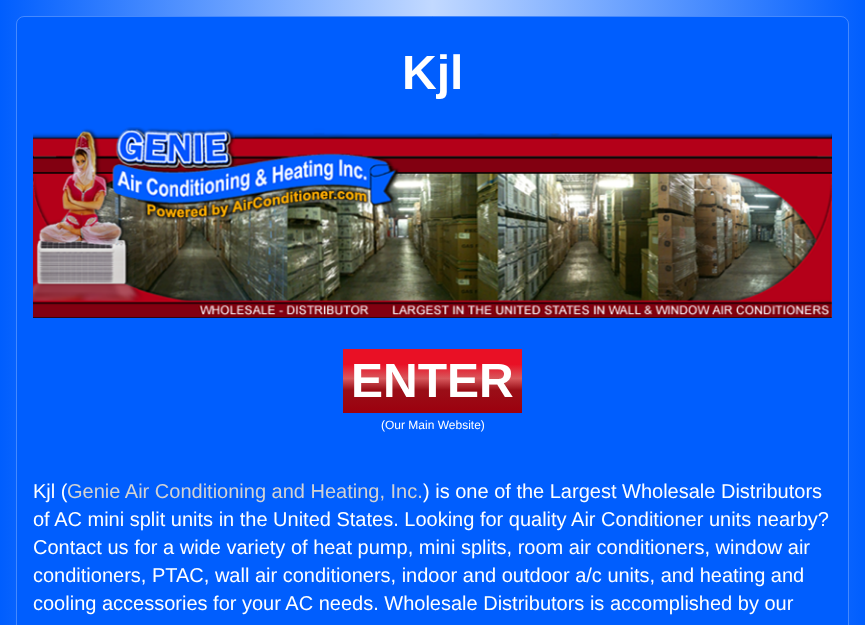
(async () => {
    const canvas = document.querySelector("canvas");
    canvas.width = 865;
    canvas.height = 625;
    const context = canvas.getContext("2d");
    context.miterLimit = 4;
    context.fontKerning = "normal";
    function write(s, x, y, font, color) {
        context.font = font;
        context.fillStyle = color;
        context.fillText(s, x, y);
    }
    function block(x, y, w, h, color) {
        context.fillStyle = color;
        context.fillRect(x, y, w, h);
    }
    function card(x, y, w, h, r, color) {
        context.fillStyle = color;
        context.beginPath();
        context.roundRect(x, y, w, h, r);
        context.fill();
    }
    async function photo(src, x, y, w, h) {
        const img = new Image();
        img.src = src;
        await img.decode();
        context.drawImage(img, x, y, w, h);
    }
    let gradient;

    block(0, 0, 865, 625, "rgb(255, 255, 255)");
    gradient = context.createLinearGradient(0, 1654, 865, 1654);
    gradient.addColorStop(0, "rgb(0, 94, 254)");
    gradient.addColorStop(0.5, "rgb(194, 217, 255)");
    gradient.addColorStop(1, "rgb(0, 94, 254)");
    context.fillStyle = gradient;
    context.fillRect(0, 0, 865, 625);
    card(16, 16, 833, 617, 8, "rgb(0, 94, 254)");
    context.beginPath();
    context.roundRect(16.5, 16.5, 832, 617, 7.5);
    context.strokeStyle = "rgba(255, 255, 255, 0.27)";
    context.stroke();
    write("Kjl", 402, 89, "bold 48px Liberation Sans", "rgb(255, 255, 255)");
    await photo("media/1.png", 33, 127, 799, 191);
    gradient = context.createLinearGradient(433, 413, 433, 349);
    gradient.addColorStop(0, "rgb(156, 0, 14)");
    gradient.addColorStop(0.36, "rgb(154, 14, 23)");
    gradient.addColorStop(0.54, "rgb(216, 89, 93)");
    gradient.addColorStop(0.76, "rgb(233, 16, 37)");
    context.fillStyle = gradient;
    context.fillRect(343, 349, 179, 64);
    write("ENTER", 351, 397, "bold 48px Liberation Sans", "rgb(255, 255, 255)");
    write("(Our Main Website)", 381, 429, "12px Liberation Sans", "rgb(255, 255, 255)");
    write("Kjl (", 33, 498, "20px Liberation Sans", "rgb(255, 255, 255)");
    write("Genie Air Conditioning and Heating, Inc.", 67, 498, "20px Liberation Sans", "rgb(211, 211, 211)");
    write(") is one of the Largest Wholesale Distributors", 423, 498, "20px Liberation Sans", "rgb(255, 255, 255)");
    write("of AC mini split units in the United States. Looking for quality Air Conditioner units nearby?", 33, 526, "20px Liberation Sans", "rgb(255, 255, 255)");
    write("Contact us for a wide variety of heat pump, mini splits, room air conditioners, window air", 33, 554, "20px Liberation Sans", "rgb(255, 255, 255)");
    write("conditioners, PTAC, wall air conditioners, indoor and outdoor a/c units, and heating and", 33, 582, "20px Liberation Sans", "rgb(255, 255, 255)");
    write("cooling accessories for your AC needs. Wholesale Distributors is accomplished by our", 33, 610, "20px Liberation Sans", "rgb(255, 255, 255)");
})();
